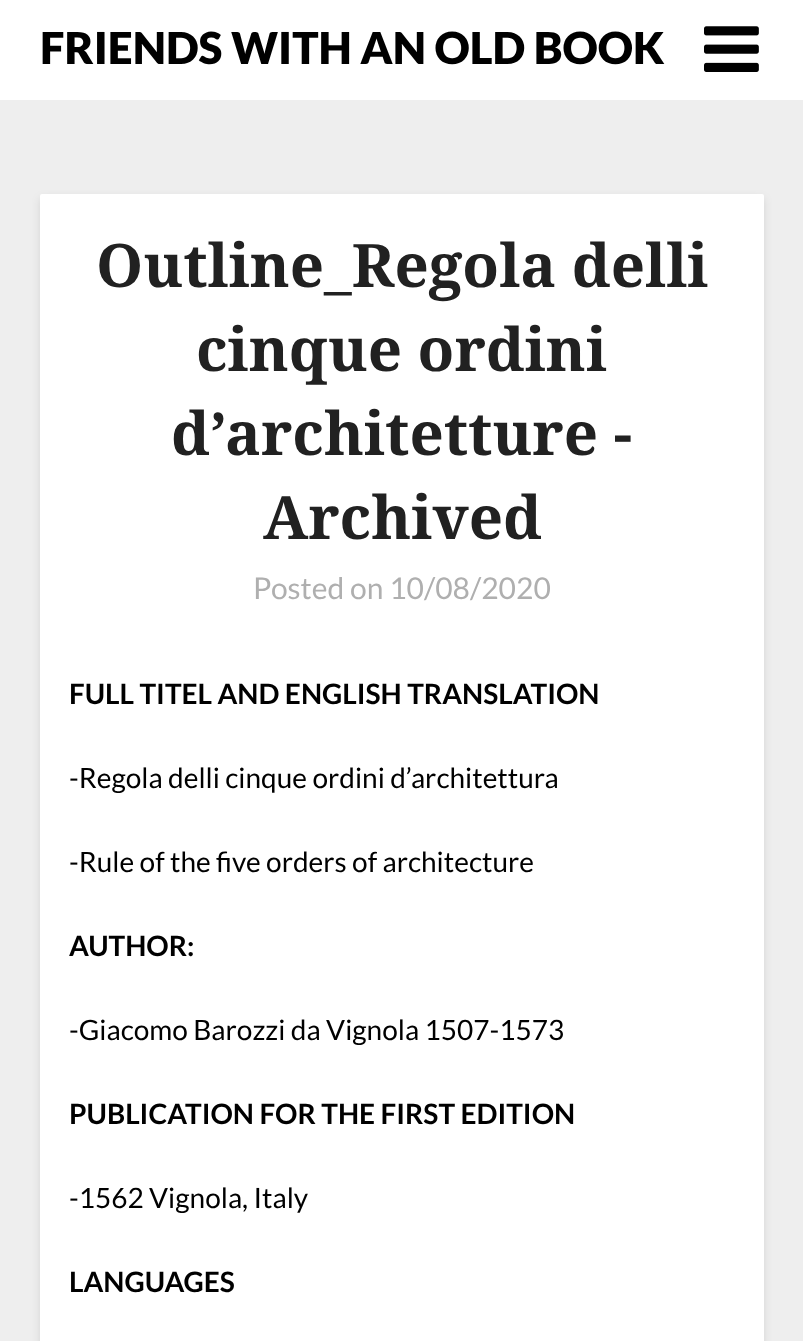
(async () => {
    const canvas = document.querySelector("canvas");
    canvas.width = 803;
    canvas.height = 1341;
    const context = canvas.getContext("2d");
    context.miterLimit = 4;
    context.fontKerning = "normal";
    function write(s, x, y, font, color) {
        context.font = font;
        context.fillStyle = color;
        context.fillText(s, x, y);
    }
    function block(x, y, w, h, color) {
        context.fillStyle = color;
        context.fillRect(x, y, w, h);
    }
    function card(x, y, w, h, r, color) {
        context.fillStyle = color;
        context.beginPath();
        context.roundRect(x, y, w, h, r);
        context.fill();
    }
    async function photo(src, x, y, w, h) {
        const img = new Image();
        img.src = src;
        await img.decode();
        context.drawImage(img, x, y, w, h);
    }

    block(0, 0, 803, 1341, "rgb(238, 238, 238)");
    block(0, 0, 803, 100, "rgb(255, 255, 255)");
    write("FRIENDS WITH AN OLD BOOK", 40, 64, "900 44px Lato", "rgb(0, 0, 0)");
    await photo("media/1.png", 704, 26, 55, 46);
    context.fillStyle = "rgba(0, 0, 0, 0.1)";
    context.filter = "blur(4px)";
    context.beginPath();
    context.roundRect(40, 198, 724, 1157, 2);
    context.fill();
    context.filter = "none";
    card(40, 194, 724, 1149, 2, "rgb(255, 255, 255)");
    write("Outline_Regola delli", 96, 287, "bold 60px Noto Serif", "rgb(33, 33, 33)");
    write("cinque ordini", 196, 371, "bold 60px Noto Serif", "rgb(33, 33, 33)");
    write("d’architetture -", 171, 455, "bold 60px Noto Serif", "rgb(33, 33, 33)");
    write("Archived", 263, 539, "bold 60px Noto Serif", "rgb(33, 33, 33)");
    write("Posted on 10/08/2020", 253, 599, "30px Lato", "rgb(175, 175, 175)");
    write("FULL TITEL AND ENGLISH TRANSLATION", 69, 704, "bold 28px Lato", "rgb(0, 0, 0)");
    write("-Regola delli cinque ordini d’architettura", 69, 788, "28px Lato", "rgb(0, 0, 0)");
    write("-Rule of the five orders of architecture", 69, 872, "28px Lato", "rgb(0, 0, 0)");
    write("AUTHOR:", 69, 956, "bold 28px Lato", "rgb(0, 0, 0)");
    write("-Giacomo Barozzi da Vignola 1507-1573", 69, 1040, "28px Lato", "rgb(0, 0, 0)");
    write("PUBLICATION FOR THE FIRST EDITION", 69, 1124, "bold 28px Lato", "rgb(0, 0, 0)");
    write("-1562 Vignola, Italy", 69, 1208, "28px Lato", "rgb(0, 0, 0)");
    write("LANGUAGES", 69, 1292, "bold 28px Lato", "rgb(0, 0, 0)");
})();
